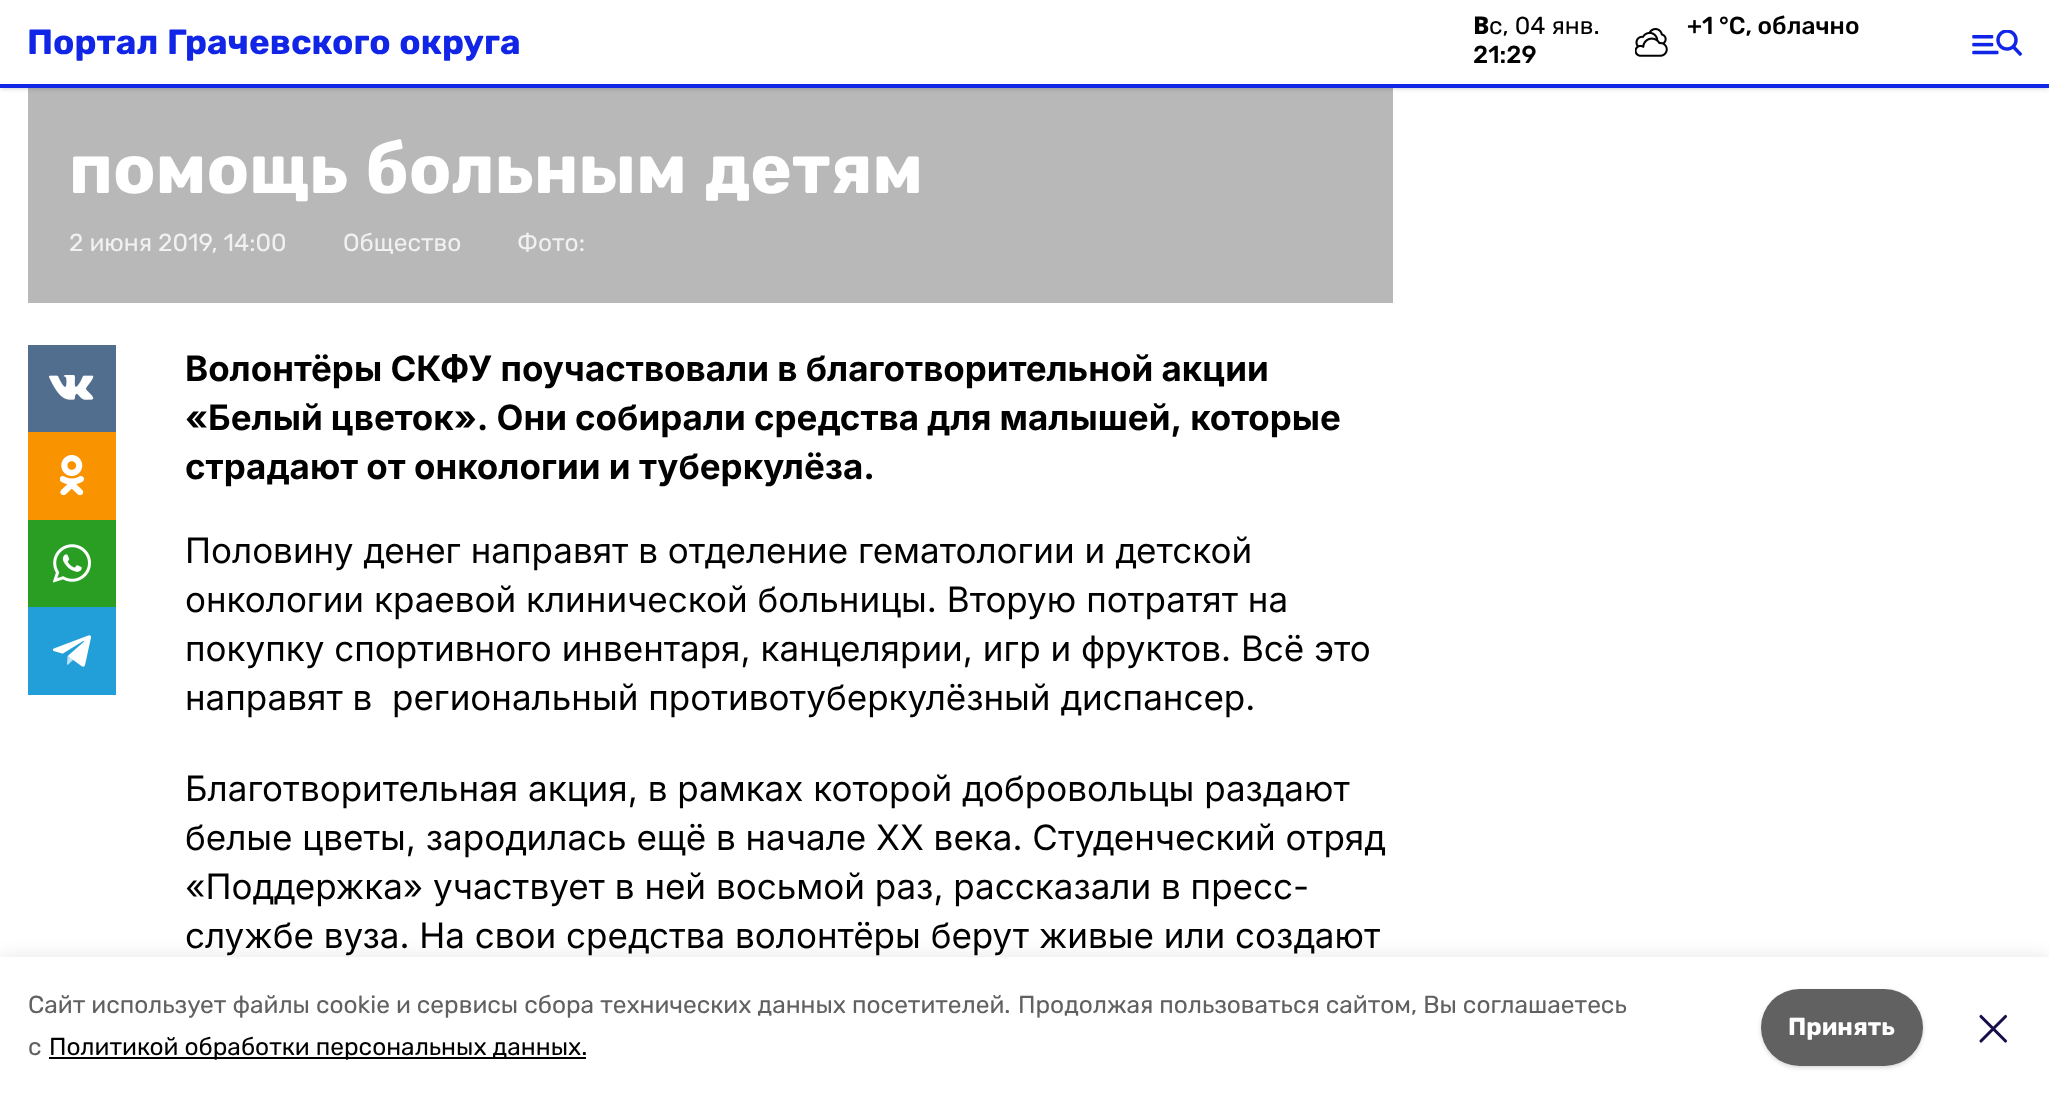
(async () => {
    const canvas = document.querySelector("canvas");
    canvas.width = 2049;
    canvas.height = 1096;
    const context = canvas.getContext("2d");
    context.miterLimit = 4;
    context.fontKerning = "normal";
    function write(s, x, y, font, color) {
        context.font = font;
        context.fillStyle = color;
        context.fillText(s, x, y);
    }
    function block(x, y, w, h, color) {
        context.fillStyle = color;
        context.fillRect(x, y, w, h);
    }
    function card(x, y, w, h, r, color) {
        context.fillStyle = color;
        context.beginPath();
        context.roundRect(x, y, w, h, r);
        context.fill();
    }
    async function photo(src, x, y, w, h) {
        const img = new Image();
        img.src = src;
        await img.decode();
        context.drawImage(img, x, y, w, h);
    }

    block(0, 0, 2049, 1096, "rgb(255, 255, 255)");
    block(28, 88, 1365, 215, "rgb(184, 184, 184)");
    context.fillStyle = "rgba(0, 0, 0, 0.1)";
    context.filter = "blur(2px)";
    context.beginPath();
    context.rect(2, 4, 2046, 84);
    context.fill();
    context.filter = "none";
    context.filter = "blur(2.5px)";
    context.beginPath();
    context.rect(0, 2, 2049, 87);
    context.fill();
    context.filter = "none";
    block(0, 0, 2049, 84, "rgb(255, 255, 255)");
    block(0, 84, 2049, 4, "rgb(16, 37, 230)");
    write("Портал Грачевского округа", 27, 54, "bold 35px Rubik", "rgb(16, 37, 230)");
    write("В", 1473, 34, "800 24.5px Noto Sans", "rgb(0, 0, 0)");
    write("с, 04 янв.", 1489, 34, "24.5px Rubik", "rgb(0, 0, 0)");
    write("21:29", 1473, 63, "500 24.5px Rubik", "rgb(0, 0, 0)");
    await photo("media/1.png", 1635, 28, 33, 29);
    write("+", 1687, 34, "500 24.5px Rubik", "rgb(0, 0, 0)");
    write("1 °С, облачно", 1702, 34, "500 24.5px Rubik", "rgb(0, 0, 0)");
    await photo("media/2.png", 1972, 30, 51, 26);
    write("помощь больным детям", 69, 193, "bold 70px Rubik", "rgb(255, 255, 255)");
    write("2 июня 2019, 14:00", 69, 251, "24.5px Rubik", "rgb(241, 241, 241)");
    write("Общество", 343, 251, "24.5px Rubik", "rgb(241, 241, 241)");
    write("Фото:", 517, 251, "24.5px Rubik", "rgb(241, 241, 241)");
    block(28, 345, 88, 87, "rgb(82, 110, 143)");
    await photo("media/3.png", 49, 375, 45, 25);
    block(28, 432, 88, 88, "rgb(249, 148, 0)");
    await photo("media/4.png", 60, 455, 24, 40);
    block(28, 520, 88, 87, "rgb(42, 158, 34)");
    await photo("media/5.png", 53, 544, 38, 39);
    block(28, 607, 88, 88, "rgb(34, 158, 217)");
    await photo("media/6.png", 53, 635, 38, 32);
    write("Волонтёры СКФУ поучаствовали в благотворительной акции", 185, 381, "bold 35px Inter", "rgb(0, 0, 0)");
    context.wordSpacing = "-0.25px";
    write("«Белый цветок». Они собирали средства для малышей, которые", 185, 430, "bold 35px Inter", "rgb(0, 0, 0)");
    context.wordSpacing = "0px";
    write("страдают от онкологии и туберкулёза.", 185, 479, "bold 35px Inter", "rgb(0, 0, 0)");
    write("Половину денег направят в отделение гематологии и детской", 185, 563, "35px Inter", "rgb(0, 0, 0)");
    write("онкологии краевой клинической больницы. Вторую потратят на", 185, 612, "35px Inter", "rgb(0, 0, 0)");
    write("покупку спортивного инвентаря, канцелярии, игр и фруктов. Всё это", 185, 661, "35px Inter", "rgb(0, 0, 0)");
    write("направят в  региональный противотуберкулёзный диспансер.", 185, 710, "35px Inter", "rgb(0, 0, 0)");
    write("Благотворительная акция, в рамках которой добровольцы раздают", 185, 801, "35px Inter", "rgb(0, 0, 0)");
    write("белые цветы, зародилась ещё в начале XX века. Студенческий отряд", 185, 850, "35px Inter", "rgb(0, 0, 0)");
    write("«Поддержка» участвует в ней восьмой раз, рассказали в пресс-", 185, 899, "35px Inter", "rgb(0, 0, 0)");
    write("службе вуза. На свои средства волонтёры берут живые или создают", 185, 948, "35px Inter", "rgb(0, 0, 0)");
    context.fillStyle = "rgba(0, 0, 0, 0.1)";
    context.filter = "blur(9px)";
    context.beginPath();
    context.rect(0, 957, 2049, 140);
    context.fill();
    context.filter = "none";
    block(0, 957, 2049, 139, "rgb(255, 255, 255)");
    write("Cайт использует файлы cookie и сервисы сбора технических данных посетителей.", 28, 1013, "24.5px Rubik", "rgb(97, 97, 97)");
    write("Продолжая пользоваться сайтом, Вы соглашаетесь", 1018, 1013, "24.5px Rubik", "rgb(97, 97, 97)");
    write("с", 28, 1055, "24.5px Rubik", "rgb(97, 97, 97)");
    block(49, 1057, 537, 2, "rgb(0, 0, 0)");
    write("Политикой обработки персональных данных.", 49, 1055, "24.5px Rubik", "rgb(0, 0, 0)");
    context.fillStyle = "rgba(0, 0, 0, 0.1)";
    context.filter = "blur(2px)";
    context.beginPath();
    context.roundRect(1762, 992, 160, 74, 37);
    context.fill();
    context.filter = "none";
    context.filter = "blur(2.5px)";
    context.beginPath();
    context.roundRect(1761, 991, 162, 77, 38.5);
    context.fill();
    context.filter = "none";
    card(1761, 989, 162, 77, 38.5, "rgb(97, 97, 97)");
    write("Принять", 1788, 1035, "bold 24.5px Rubik", "rgb(255, 255, 255)");
    context.beginPath();
    context.moveTo(1981, 1041);
    context.lineTo(2005.5, 1016.5);
    context.moveTo(2005.5, 1041);
    context.lineTo(1981, 1016.5);
    context.strokeStyle = "rgb(23, 15, 73)";
    context.lineWidth = 3.1;
    context.lineCap = "round";
    context.lineJoin = "round";
    context.stroke();
})();
